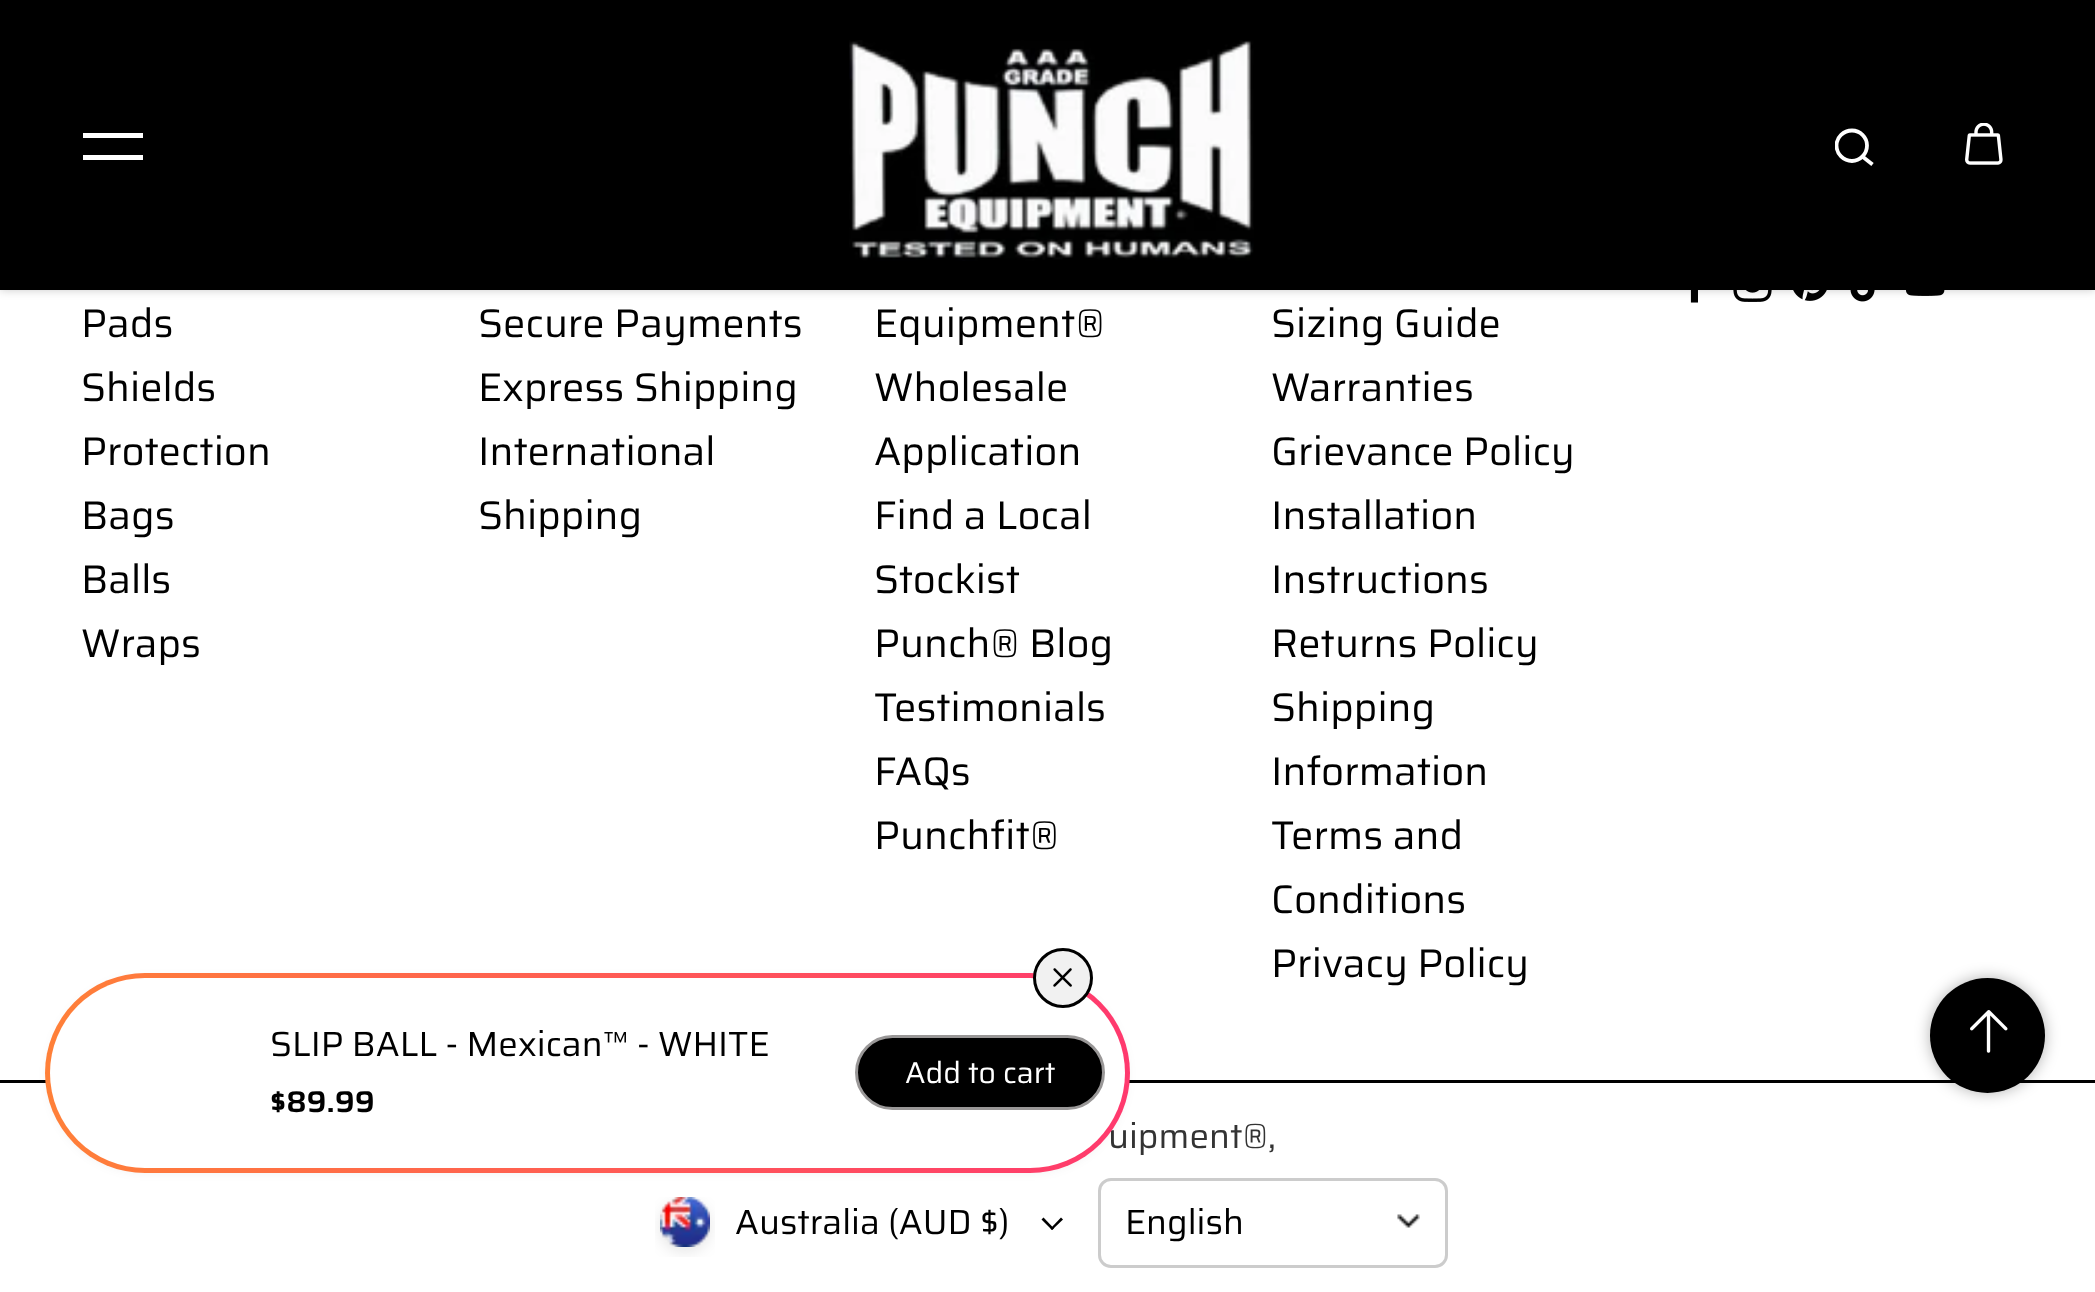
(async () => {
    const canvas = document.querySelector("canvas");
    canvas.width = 2095;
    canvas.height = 1292;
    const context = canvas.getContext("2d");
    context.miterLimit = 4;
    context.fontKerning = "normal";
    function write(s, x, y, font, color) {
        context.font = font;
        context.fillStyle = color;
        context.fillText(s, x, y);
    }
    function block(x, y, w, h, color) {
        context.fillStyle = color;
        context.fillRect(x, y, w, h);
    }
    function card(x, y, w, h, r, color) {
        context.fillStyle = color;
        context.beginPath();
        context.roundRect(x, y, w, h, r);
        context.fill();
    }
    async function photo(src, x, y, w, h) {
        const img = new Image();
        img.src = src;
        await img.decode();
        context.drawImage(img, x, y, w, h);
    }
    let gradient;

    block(0, 0, 2095, 1292, "rgb(255, 255, 255)");
    await photo("media/3.png", 1690, 290, 8, 13);
    await photo("media/4.png", 1733, 290, 39, 12);
    await photo("media/5.png", 1793, 290, 34, 11);
    await photo("media/6.png", 1850, 290, 25, 12);
    await photo("media/7.png", 1905, 290, 40, 6);
    context.fillStyle = "rgba(0, 0, 0, 0.21)";
    context.filter = "blur(5px)";
    context.beginPath();
    context.rect(0, 0, 2095, 290);
    context.fill();
    context.filter = "none";
    block(0, 0, 2095, 290, "rgb(0, 0, 0)");
    block(83, 133, 60, 5, "rgb(255, 255, 255)");
    block(83, 155, 60, 5, "rgb(255, 255, 255)");
    await photo("media/1.png", 849, 40, 405, 221);
    context.save();
    context.beginPath();
    context.rect(1835, 128, 38, 39);
    context.clip();
    context.beginPath();
    context.moveTo(1852, 161);
    context.bezierCurveTo(1860, 161, 1867, 154, 1867, 145.5);
    context.bezierCurveTo(1867, 137, 1860, 130.5, 1852, 130.5);
    context.bezierCurveTo(1843.5, 130.5, 1836.5, 137, 1836.5, 145.5);
    context.bezierCurveTo(1836.5, 154, 1843.5, 161, 1852, 161);
    context.closePath();
    context.strokeStyle = "rgb(255, 255, 255)";
    context.lineWidth = 3.8;
    context.stroke();
    context.restore();
    context.beginPath();
    context.moveTo(1863, 157);
    context.lineTo(1872.5, 164.5);
    context.strokeStyle = "rgb(255, 255, 255)";
    context.lineWidth = 3.8;
    context.stroke();
    await photo("media/2.png", 1965, 123, 38, 42);
    write("Pads", 81, 337, "40px Saira", "rgb(0, 0, 0)");
    write("Shields", 81, 401, "40px Saira", "rgb(0, 0, 0)");
    write("Protection", 81, 465, "40px Saira", "rgb(0, 0, 0)");
    write("Bags", 81, 529, "40px Saira", "rgb(0, 0, 0)");
    write("Balls", 81, 593, "40px Saira", "rgb(0, 0, 0)");
    write("Wraps", 81, 657, "40px Saira", "rgb(0, 0, 0)");
    write("Secure Payments", 478, 337, "40px Saira", "rgb(0, 0, 0)");
    write("Express Shipping", 478, 401, "40px Saira", "rgb(0, 0, 0)");
    write("International", 478, 465, "40px Saira", "rgb(0, 0, 0)");
    write("Shipping", 478, 529, "40px Saira", "rgb(0, 0, 0)");
    write("Equipment®", 874, 337, "40px Saira", "rgb(0, 0, 0)");
    write("Wholesale", 874, 401, "40px Saira", "rgb(0, 0, 0)");
    write("Application", 874, 465, "40px Saira", "rgb(0, 0, 0)");
    write("Find a Local", 874, 529, "40px Saira", "rgb(0, 0, 0)");
    write("Stockist", 874, 593, "40px Saira", "rgb(0, 0, 0)");
    write("Punch® Blog", 874, 657, "40px Saira", "rgb(0, 0, 0)");
    write("Testimonials", 874, 721, "40px Saira", "rgb(0, 0, 0)");
    write("FAQs", 874, 785, "40px Saira", "rgb(0, 0, 0)");
    write("Punchfit®", 874, 849, "40px Saira", "rgb(0, 0, 0)");
    write("Sizing Guide", 1271, 337, "40px Saira", "rgb(0, 0, 0)");
    write("Warranties", 1271, 401, "40px Saira", "rgb(0, 0, 0)");
    write("Grievance Policy", 1271, 465, "40px Saira", "rgb(0, 0, 0)");
    write("Installation", 1271, 529, "40px Saira", "rgb(0, 0, 0)");
    write("Instructions", 1271, 593, "40px Saira", "rgb(0, 0, 0)");
    write("Returns Policy", 1271, 657, "40px Saira", "rgb(0, 0, 0)");
    write("Shipping", 1271, 721, "40px Saira", "rgb(0, 0, 0)");
    write("Information", 1271, 785, "40px Saira", "rgb(0, 0, 0)");
    write("Terms and", 1271, 849, "40px Saira", "rgb(0, 0, 0)");
    write("Conditions", 1271, 913, "40px Saira", "rgb(0, 0, 0)");
    write("Privacy Policy", 1271, 977, "40px Saira", "rgb(0, 0, 0)");
    block(0, 1080, 2095, 3, "rgb(0, 0, 0)");
    write("uipment®,", 1108, 1148, "35px Saira", "rgb(51, 51, 51)");
    await photo("media/8.png", 655, 1197, 60, 60);
    write("Australia (AUD $)", 735, 1234, "35px Saira", "rgb(0, 0, 0)");
    context.beginPath();
    context.moveTo(1061, 1217.5);
    context.lineTo(1063, 1219.5);
    context.lineTo(1052, 1230);
    context.lineTo(1050.5, 1228.5);
    context.closePath();
    context.fill();
    context.beginPath();
    context.moveTo(1043.5, 1217.5);
    context.lineTo(1054, 1228.5);
    context.lineTo(1052, 1230);
    context.lineTo(1041.5, 1219.5);
    context.closePath();
    context.fill();
    context.beginPath();
    context.roundRect(1099.5, 1179.5, 347, 87, 11.5);
    context.strokeStyle = "rgb(204, 204, 204)";
    context.lineWidth = 3;
    context.stroke();
    write("English", 1125, 1234, "35px Saira", "rgb(0, 0, 0)");
    await photo("media/9.png", 1397, 1214, 23, 14);
    context.fillStyle = "rgba(0, 0, 0, 0.09)";
    context.filter = "blur(6px)";
    context.beginPath();
    context.roundRect(50, 980, 1075, 190, 95);
    context.fill();
    context.filter = "none";
    gradient = context.createLinearGradient(45, 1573, 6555, 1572);
    gradient.addColorStop(0, "rgb(255, 128, 56)");
    gradient.addColorStop(0.3, "rgb(255, 0, 153)");
    gradient.addColorStop(0.68, "rgb(0, 235, 235)");
    gradient.addColorStop(1, "rgb(219, 0, 255)");
    context.fillStyle = gradient;
    context.beginPath();
    context.roundRect(45, 973, 1085, 200, 100);
    context.fill();
    card(50, 978, 1075, 190, 95, "rgb(255, 255, 255)");
    context.fillStyle = "rgb(241, 241, 241)";
    context.beginPath();
    context.arc(1063, 978, 28.5, 0, Math.PI * 2);
    context.fill();
    context.strokeStyle = "rgb(0, 0, 0)";
    context.stroke();
    await photo("media/10.png", 1053, 968, 19, 19);
    write("SLIP BALL - Mexican™ - WHITE", 270, 1056, "35px Saira", "rgb(0, 0, 0)");
    write("$89.99", 270, 1112, "600 30px Saira", "rgb(0, 0, 0)");
    context.beginPath();
    context.roundRect(856.5, 1036.5, 247, 72, 36);
    context.fill();
    context.strokeStyle = "rgb(153, 151, 151)";
    context.stroke();
    write("Add to cart", 905, 1083, "30px Saira", "rgb(255, 255, 255)");
    context.fillStyle = "rgba(0, 0, 0, 0.3)";
    context.filter = "blur(7.5px)";
    context.beginPath();
    context.roundRect(1930, 978, 115, 115, 57.5);
    context.fill();
    context.filter = "none";
    context.fillStyle = "rgb(0, 0, 0)";
    context.beginPath();
    context.arc(1987.5, 1035.5, 57.5, 0, Math.PI * 2);
    context.fill();
    await photo("media/11.png", 1970, 1010, 38, 43);
})();
